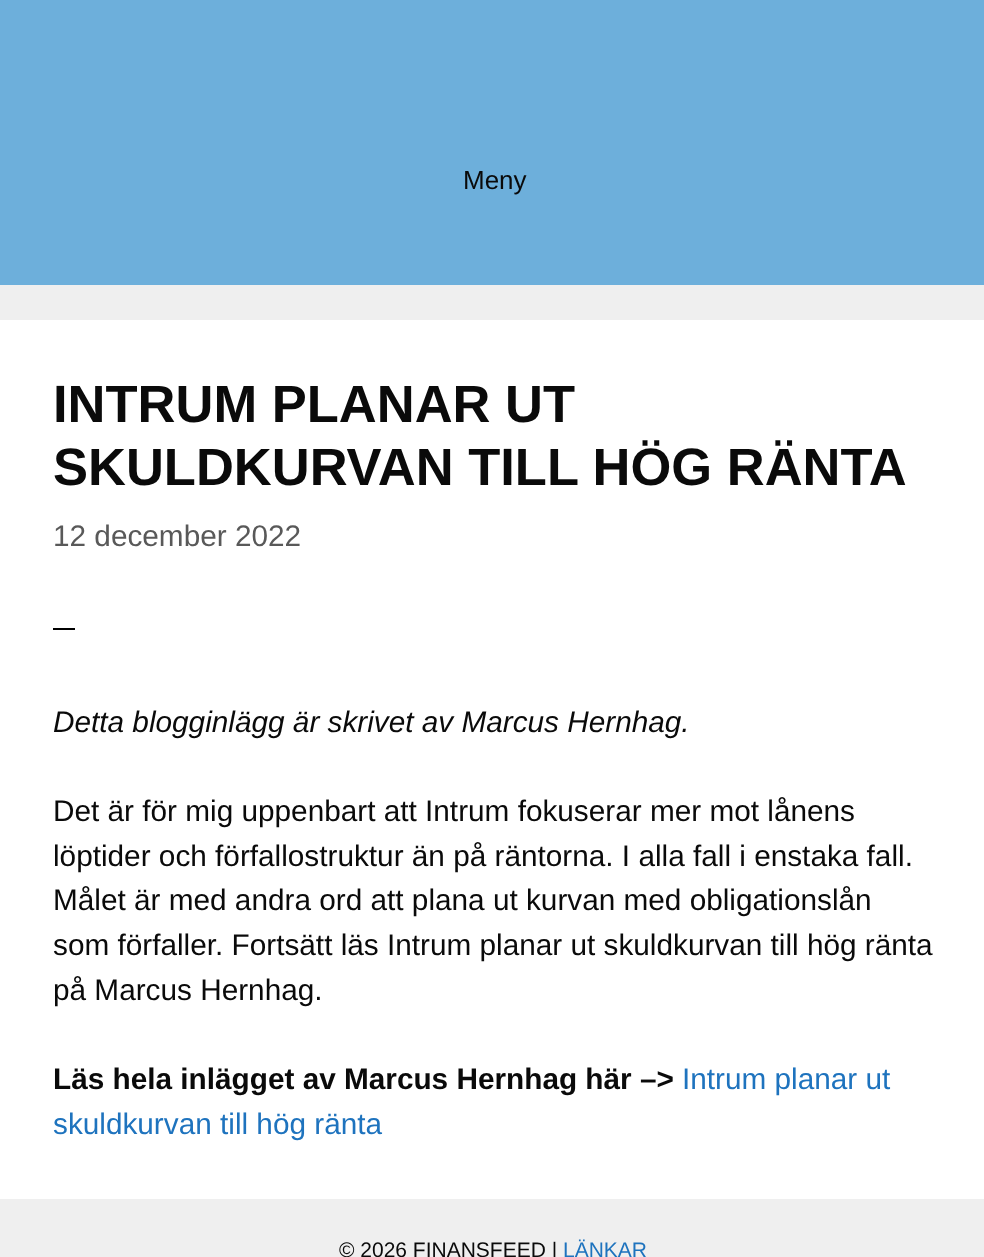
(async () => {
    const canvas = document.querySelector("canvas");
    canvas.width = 984;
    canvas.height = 1257;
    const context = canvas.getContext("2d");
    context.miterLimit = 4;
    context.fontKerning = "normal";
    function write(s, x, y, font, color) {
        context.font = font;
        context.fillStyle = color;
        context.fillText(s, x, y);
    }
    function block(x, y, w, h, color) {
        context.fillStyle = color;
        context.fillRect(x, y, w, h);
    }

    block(0, 0, 984, 1257, "rgb(239, 239, 239)");
    block(0, 0, 984, 285, "rgb(109, 175, 219)");
    write("Meny", 463, 189, "26px Arimo", "rgb(10, 10, 10)");
    block(0, 320, 984, 879, "rgb(255, 255, 255)");
    write("INTRUM PLANAR UT", 53, 422, "bold 52.5px Arimo", "rgb(10, 10, 10)");
    write("SKULDKURVAN TILL HÖG RÄNTA", 53, 485, "bold 52.5px Arimo", "rgb(10, 10, 10)");
    write("12 december 2022", 53, 546, "29.75px Arimo", "rgb(89, 89, 89)");
    block(53, 628, 22, 2, "rgb(0, 0, 0)");
    write("Detta blogginlägg är skrivet av Marcus Hernhag.", 53, 732, "italic 29.75px Arimo", "rgb(10, 10, 10)");
    write("Det är för mig uppenbart att Intrum fokuserar mer mot lånens", 53, 821, "29.75px Arimo", "rgb(10, 10, 10)");
    write("löptider och förfallostruktur än på räntorna. I alla fall i enstaka fall.", 53, 866, "29.75px Arimo", "rgb(10, 10, 10)");
    write("Målet är med andra ord att plana ut kurvan med obligationslån", 53, 910, "29.75px Arimo", "rgb(10, 10, 10)");
    write("som förfaller. Fortsätt läs Intrum planar ut skuldkurvan till hög ränta", 53, 955, "29.75px Arimo", "rgb(10, 10, 10)");
    write("på Marcus Hernhag.", 53, 1000, "29.75px Arimo", "rgb(10, 10, 10)");
    write("Läs hela inlägget av Marcus Hernhag här –>", 53, 1089, "bold 29.75px Arimo", "rgb(10, 10, 10)");
    write("Intrum planar ut", 682, 1089, "29.75px Arimo", "rgb(30, 115, 190)");
    write("skuldkurvan till hög ränta", 53, 1134, "29.75px Arimo", "rgb(30, 115, 190)");
    write("© 2026 FINANSFEED |", 339, 1257, "21px Arimo", "rgb(10, 10, 10)");
    write("LÄNKAR", 563, 1257, "21px Arimo", "rgb(30, 115, 190)");
})();
